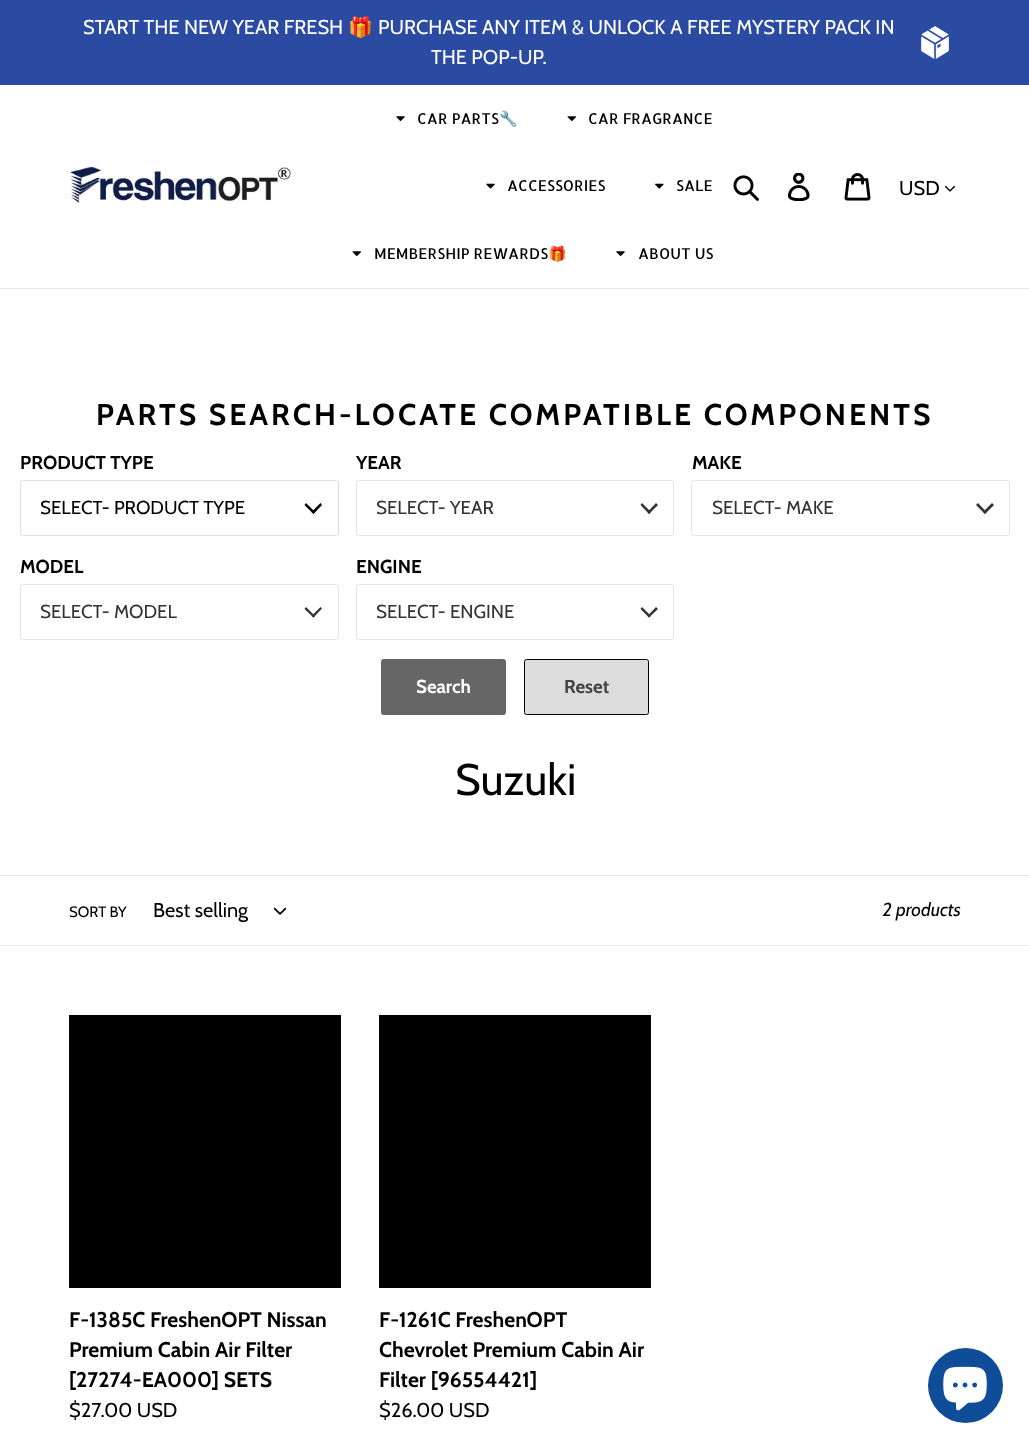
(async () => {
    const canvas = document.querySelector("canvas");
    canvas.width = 1029;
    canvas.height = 1448;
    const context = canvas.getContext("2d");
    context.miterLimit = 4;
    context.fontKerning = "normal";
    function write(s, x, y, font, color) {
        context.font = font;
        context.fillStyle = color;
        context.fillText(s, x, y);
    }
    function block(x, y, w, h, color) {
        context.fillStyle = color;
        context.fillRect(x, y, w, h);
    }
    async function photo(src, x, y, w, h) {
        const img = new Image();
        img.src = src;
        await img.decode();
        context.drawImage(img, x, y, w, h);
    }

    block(0, 0, 1029, 1448, "rgb(255, 255, 255)");
    block(0, 0, 1029, 85, "rgb(43, 74, 161)");
    write("START THE NEW YEAR FRESH", 83, 34, "20px Cabin", "rgb(255, 255, 255)");
    write("🎁", 348, 34, "20px Noto Color Emoji", "rgb(255, 255, 255)");
    write("PURCHASE ANY ITEM & UNLOCK A FREE MYSTERY PACK IN", 378, 34, "20px Cabin", "rgb(255, 255, 255)");
    write("THE POP-UP.", 431, 64, "20px Cabin", "rgb(255, 255, 255)");
    await photo("media/1.png", 921, 26, 28, 33);
    block(0, 288, 1029, 1, "rgb(232, 233, 235)");
    await photo("media/2.png", 70, 166, 221, 37);
    await photo("media/3.png", 396, 116, 9, 5);
    write("CAR PARTS", 417, 124, "15px Allerta", "rgb(0, 0, 0)");
    write("🔧", 499, 124, "15px Noto Color Emoji", "rgb(0, 0, 0)");
    await photo("media/4.png", 567, 116, 9, 5);
    write("CAR FRAGRANCE", 588, 124, "15px Allerta", "rgb(0, 0, 0)");
    await photo("media/5.png", 486, 183, 9, 6);
    write("ACCESSORIES", 507, 191, "15px Allerta", "rgb(0, 0, 0)");
    await photo("media/6.png", 655, 183, 9, 6);
    write("SALE", 676, 191, "15px Allerta", "rgb(0, 0, 0)");
    await photo("media/4.png", 352, 251, 9, 5);
    write("MEMBERSHIP REWARDS", 374, 259, "15px Allerta", "rgb(0, 0, 0)");
    write("🎁", 548, 259, "15px Noto Color Emoji", "rgb(0, 0, 0)");
    await photo("media/3.png", 616, 251, 9, 5);
    write("ABOUT US", 638, 259, "15px Allerta", "rgb(0, 0, 0)");
    await photo("media/7.png", 733, 175, 26, 26);
    await photo("media/8.png", 787, 173, 23, 28);
    await photo("media/9.png", 844, 173, 27, 28);
    write("USD", 899, 195, "20px Cabin", "rgb(0, 0, 0)");
    await photo("media/10.png", 945, 185, 10, 7);
    context.letterSpacing = "3px";
    write("PARTS SEARCH-LOCATE COMPATIBLE COMPONENTS", 96, 425, "bold 30px Cabin", "rgb(0, 0, 0)");
    context.letterSpacing = "0px";
    write("PRODUCT TYPE", 20, 469, "bold 18.75px Cabin", "rgb(0, 0, 0)");
    context.beginPath();
    context.roundRect(20.5, 480.5, 318, 55, 2);
    context.strokeStyle = "rgb(223, 223, 223)";
    context.stroke();
    write("SELECT- PRODUCT TYPE", 40, 514, "18.75px Cabin", "rgb(0, 0, 0)");
    context.beginPath();
    context.moveTo(320.5, 503);
    context.lineTo(322, 505);
    context.lineTo(313.5, 514);
    context.lineTo(311.5, 512);
    context.closePath();
    context.fill();
    context.beginPath();
    context.moveTo(306, 503);
    context.lineTo(315, 512);
    context.lineTo(313.5, 514);
    context.lineTo(304.5, 505);
    context.closePath();
    context.fill();
    write("YEAR", 356, 469, "bold 18.75px Cabin", "rgb(0, 0, 0)");
    context.beginPath();
    context.roundRect(356.5, 480.5, 317, 55, 2);
    context.strokeStyle = "rgb(229, 229, 229)";
    context.stroke();
    write("SELECT- YEAR", 376, 514, "18.75px Cabin", "rgb(51, 51, 51)");
    context.beginPath();
    context.moveTo(656, 503);
    context.lineTo(658, 505);
    context.lineTo(649, 514);
    context.lineTo(647.5, 512);
    context.closePath();
    context.fill();
    context.beginPath();
    context.moveTo(642, 503);
    context.lineTo(651, 512);
    context.lineTo(649, 514);
    context.lineTo(640.5, 505);
    context.closePath();
    context.fill();
    write("MAKE", 692, 469, "bold 18.75px Cabin", "rgb(0, 0, 0)");
    context.beginPath();
    context.roundRect(691.5, 480.5, 318, 55, 2);
    context.stroke();
    write("SELECT- MAKE", 712, 514, "18.75px Cabin", "rgb(51, 51, 51)");
    context.beginPath();
    context.moveTo(992, 503);
    context.lineTo(994, 505);
    context.lineTo(985, 514);
    context.lineTo(983, 512);
    context.closePath();
    context.fill();
    context.beginPath();
    context.moveTo(978, 503);
    context.lineTo(986.5, 512);
    context.lineTo(985, 514);
    context.lineTo(976, 505);
    context.closePath();
    context.fill();
    write("MODEL", 20, 573, "bold 18.75px Cabin", "rgb(0, 0, 0)");
    context.beginPath();
    context.roundRect(20.5, 584.5, 318, 55, 2);
    context.stroke();
    write("SELECT- MODEL", 40, 618, "18.75px Cabin", "rgb(51, 51, 51)");
    context.beginPath();
    context.moveTo(320.5, 607);
    context.lineTo(322, 608.5);
    context.lineTo(313.5, 617.5);
    context.lineTo(311.5, 616);
    context.closePath();
    context.fill();
    context.beginPath();
    context.moveTo(306, 607);
    context.lineTo(315, 616);
    context.lineTo(313.5, 617.5);
    context.lineTo(304.5, 609);
    context.closePath();
    context.fill();
    write("ENGINE", 356, 573, "bold 18.75px Cabin", "rgb(0, 0, 0)");
    context.beginPath();
    context.roundRect(356.5, 584.5, 317, 55, 2);
    context.stroke();
    write("SELECT- ENGINE", 376, 618, "18.75px Cabin", "rgb(51, 51, 51)");
    context.beginPath();
    context.moveTo(656, 607);
    context.lineTo(658, 609);
    context.lineTo(649, 617.5);
    context.lineTo(647.5, 616);
    context.closePath();
    context.fill();
    context.beginPath();
    context.moveTo(642, 607);
    context.lineTo(651, 616);
    context.lineTo(649, 617.5);
    context.lineTo(640.5, 609);
    context.closePath();
    context.fill();
    context.fillStyle = "rgb(102, 102, 102)";
    context.beginPath();
    context.roundRect(381.5, 659.5, 124, 55, 2);
    context.fill();
    context.strokeStyle = "rgb(102, 102, 102)";
    context.stroke();
    write("Search", 416, 693, "bold 18.75px Cabin", "rgb(255, 255, 255)");
    context.fillStyle = "rgb(221, 221, 221)";
    context.beginPath();
    context.roundRect(524.5, 659.5, 124, 55, 2);
    context.fill();
    context.strokeStyle = "rgb(0, 0, 0)";
    context.stroke();
    write("Reset", 564, 693, "bold 18.75px Cabin", "rgb(61, 66, 70)");
    write("Suzuki", 455, 795, "44px Cabin", "rgb(0, 0, 0)");
    block(0, 875, 1029, 1, "rgb(232, 233, 235)");
    block(0, 945, 1029, 1, "rgb(232, 233, 235)");
    write("SORT BY", 69, 917, "15px Cabin", "rgb(0, 0, 0)");
    write("Best selling", 153, 917, "20px Cabin", "rgb(0, 0, 0)");
    await photo("media/11.png", 274, 907, 12, 8);
    write("2 products", 883, 916, "italic 18.75px Cabin", "rgb(0, 0, 0)");
    block(69, 1015, 272, 273, "rgb(0, 0, 0)");
    write("F-1385C FreshenOPT Nissan", 69, 1327, "bold 21.25px Cabin", "rgb(0, 0, 0)");
    write("Premium Cabin Air Filter", 69, 1357, "bold 21.25px Cabin", "rgb(0, 0, 0)");
    write("[27274-EA000] SETS", 69, 1387, "bold 21.25px Cabin", "rgb(0, 0, 0)");
    write("$27.00 USD", 69, 1417, "20px Cabin", "rgb(0, 0, 0)");
    block(379, 1015, 272, 273, "rgb(0, 0, 0)");
    write("F-1261C FreshenOPT", 379, 1327, "bold 21.25px Cabin", "rgb(0, 0, 0)");
    write("Chevrolet Premium Cabin Air", 379, 1357, "bold 21.25px Cabin", "rgb(0, 0, 0)");
    write("Filter [96554421]", 379, 1387, "bold 21.25px Cabin", "rgb(0, 0, 0)");
    write("$26.00 USD", 379, 1417, "20px Cabin", "rgb(0, 0, 0)");
    context.fillStyle = "rgb(16, 77, 153)";
    context.beginPath();
    context.arc(965.5, 1385.5, 37.5, 0, Math.PI * 2);
    context.fill();
    await photo("media/12.png", 943, 1366, 44, 45);
})();
